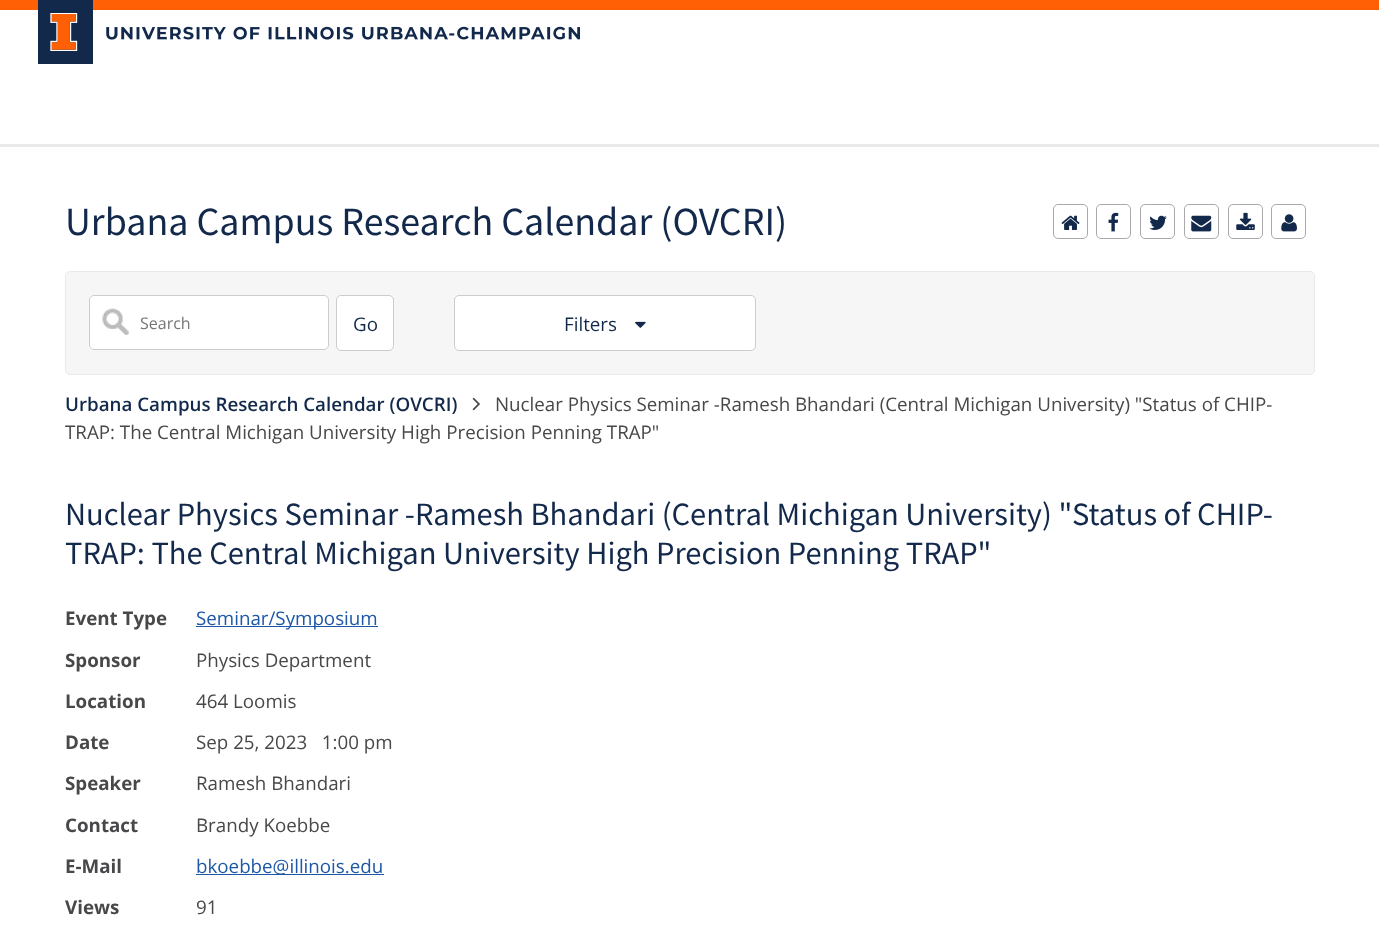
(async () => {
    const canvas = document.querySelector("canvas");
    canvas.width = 1379;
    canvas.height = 945;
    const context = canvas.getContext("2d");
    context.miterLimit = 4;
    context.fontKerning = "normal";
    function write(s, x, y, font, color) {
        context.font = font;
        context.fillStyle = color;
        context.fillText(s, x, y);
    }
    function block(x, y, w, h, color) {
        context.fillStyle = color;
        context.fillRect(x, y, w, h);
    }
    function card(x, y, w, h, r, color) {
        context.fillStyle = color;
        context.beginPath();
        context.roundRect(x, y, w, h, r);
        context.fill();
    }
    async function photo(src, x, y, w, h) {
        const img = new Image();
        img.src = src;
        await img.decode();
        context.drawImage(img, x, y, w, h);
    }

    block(0, 0, 1379, 945, "rgb(255, 255, 255)");
    block(0, 144, 1379, 3, "rgb(232, 233, 235)");
    block(0, 0, 1379, 10, "rgb(255, 95, 5)");
    block(38, 0, 55, 64, "rgb(19, 41, 75)");
    await photo("media/1.png", 50, 13, 28, 38);
    await photo("media/2.png", 106, 26, 474, 14);
    write("Urbana Campus Research Calendar (OVCRI)", 65, 235, "40px Source Sans Pro", "rgb(19, 41, 75)");
    context.beginPath();
    context.roundRect(1053.5, 204.5, 34, 34, 4.5);
    context.strokeStyle = "rgb(170, 170, 170)";
    context.stroke();
    await photo("media/3.png", 1061, 215, 19, 15);
    context.beginPath();
    context.roundRect(1096.5, 204.5, 34, 34, 4.5);
    context.stroke();
    await photo("media/4.png", 1108, 212, 11, 20);
    context.beginPath();
    context.roundRect(1140.5, 204.5, 34, 34, 4.5);
    context.stroke();
    await photo("media/5.png", 1149, 215, 18, 15);
    context.beginPath();
    context.roundRect(1184.5, 204.5, 34, 34, 4.5);
    context.stroke();
    await photo("media/6.png", 1191, 215, 21, 17);
    context.beginPath();
    context.roundRect(1228.5, 204.5, 34, 34, 4.5);
    context.stroke();
    await photo("media/7.png", 1236, 212, 19, 18);
    context.beginPath();
    context.roundRect(1271.5, 204.5, 34, 34, 4.5);
    context.stroke();
    await photo("media/8.png", 1281, 214, 16, 18);
    context.fillStyle = "rgb(246, 246, 246)";
    context.beginPath();
    context.roundRect(65.5, 271.5, 1249, 103, 4.5);
    context.fill();
    context.strokeStyle = "rgb(233, 233, 233)";
    context.stroke();
    card(89, 295, 240, 55, 5, "rgb(255, 255, 255)");
    await photo("media/9.png", 102, 308, 27, 27);
    context.beginPath();
    context.roundRect(89.5, 295.5, 239, 54, 4.5);
    context.strokeStyle = "rgb(204, 204, 204)";
    context.stroke();
    write("Search", 140, 329, "16px Open Sans", "rgb(117, 117, 117)");
    context.fillStyle = "rgb(255, 255, 255)";
    context.beginPath();
    context.roundRect(336.5, 295.5, 57, 55, 4.5);
    context.fill();
    context.stroke();
    write("Go", 353, 331, "18.75px Open Sans", "rgb(19, 41, 75)");
    context.fillStyle = "rgb(255, 255, 255)";
    context.beginPath();
    context.roundRect(454.5, 295.5, 301, 55, 4.5);
    context.fill();
    context.stroke();
    write("Filters", 564, 331, "18.75px Open Sans", "rgb(19, 41, 75)");
    await photo("media/10.png", 635, 321, 11, 7);
    write("Urbana Campus Research Calendar (OVCRI)", 65, 411, "600 18.75px Open Sans", "rgb(19, 41, 75)");
    await photo("media/11.png", 472, 397, 8, 14);
    write("Nuclear Physics Seminar -Ramesh Bhandari (Central Michigan University) \"Status of CHIP-", 495, 411, "18.75px Open Sans", "rgb(72, 72, 74)");
    write("TRAP: The Central Michigan University High Precision Penning TRAP\"", 65, 439, "18.75px Open Sans", "rgb(72, 72, 74)");
    write("Nuclear Physics Seminar -Ramesh Bhandari (Central Michigan University) \"Status of CHIP-", 65, 525, "32.5px Source Sans Pro", "rgb(19, 41, 75)");
    write("TRAP: The Central Michigan University High Precision Penning TRAP\"", 65, 564, "32.5px Source Sans Pro", "rgb(19, 41, 75)");
    write("Event Type", 65, 625, "bold 18.75px Open Sans", "rgb(72, 72, 74)");
    block(196, 626, 182, 1, "rgb(29, 88, 167)");
    write("Seminar/Symposium", 196, 625, "18.75px Open Sans", "rgb(29, 88, 167)");
    write("Sponsor", 65, 667, "bold 18.75px Open Sans", "rgb(72, 72, 74)");
    write("Physics Department", 196, 667, "18.75px Open Sans", "rgb(72, 72, 74)");
    write("Location", 65, 708, "bold 18.75px Open Sans", "rgb(72, 72, 74)");
    write("464 Loomis", 196, 708, "18.75px Open Sans", "rgb(72, 72, 74)");
    write("Date", 65, 749, "bold 18.75px Open Sans", "rgb(72, 72, 74)");
    write("Sep 25, 2023   1:00 pm", 196, 749, "18.75px Open Sans", "rgb(72, 72, 74)");
    write("Speaker", 65, 790, "bold 18.75px Open Sans", "rgb(72, 72, 74)");
    write("Ramesh Bhandari", 196, 790, "18.75px Open Sans", "rgb(72, 72, 74)");
    write("Contact", 65, 832, "bold 18.75px Open Sans", "rgb(72, 72, 74)");
    write("Brandy Koebbe", 196, 832, "18.75px Open Sans", "rgb(72, 72, 74)");
    write("E-Mail", 65, 873, "bold 18.75px Open Sans", "rgb(72, 72, 74)");
    block(196, 874, 188, 1, "rgb(29, 88, 167)");
    write("bkoebbe@illinois.edu", 196, 873, "18.75px Open Sans", "rgb(29, 88, 167)");
    write("Views", 65, 914, "bold 18.75px Open Sans", "rgb(72, 72, 74)");
    write("91", 196, 914, "18.75px Open Sans", "rgb(72, 72, 74)");
})();
